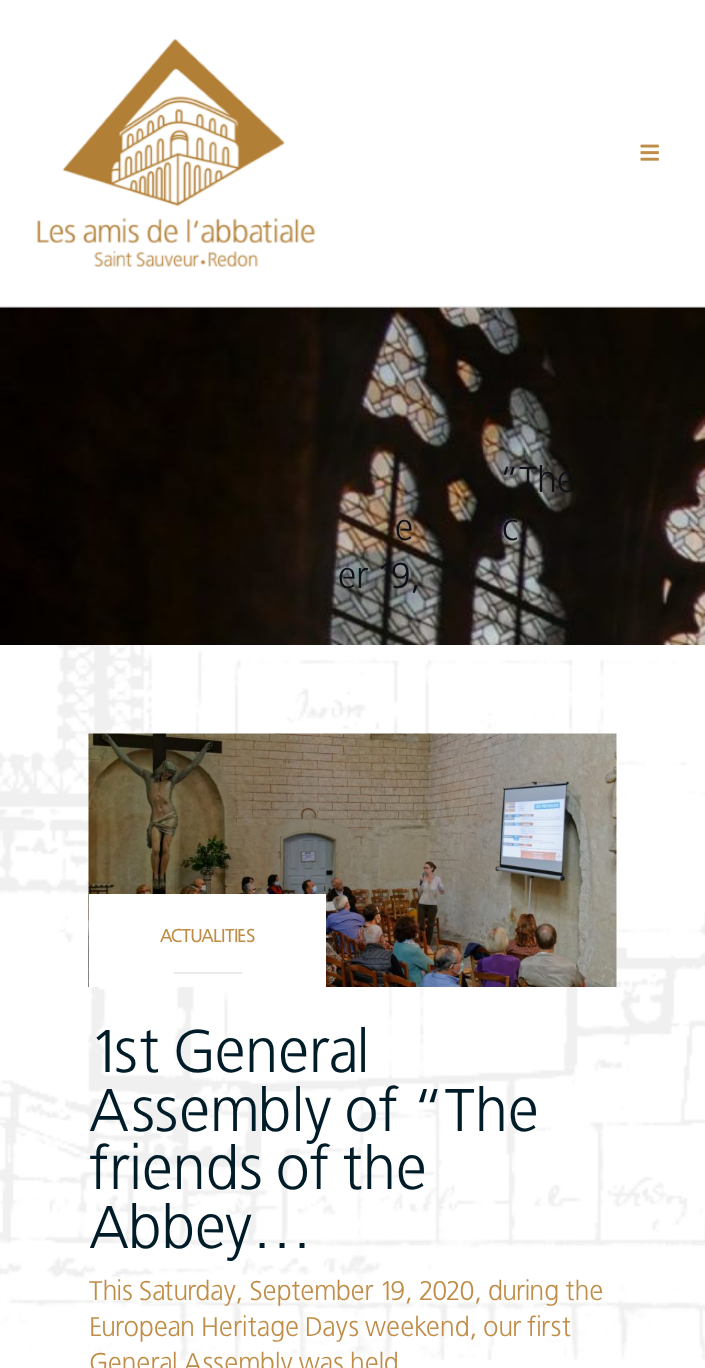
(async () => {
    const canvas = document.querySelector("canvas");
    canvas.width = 705;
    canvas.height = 1368;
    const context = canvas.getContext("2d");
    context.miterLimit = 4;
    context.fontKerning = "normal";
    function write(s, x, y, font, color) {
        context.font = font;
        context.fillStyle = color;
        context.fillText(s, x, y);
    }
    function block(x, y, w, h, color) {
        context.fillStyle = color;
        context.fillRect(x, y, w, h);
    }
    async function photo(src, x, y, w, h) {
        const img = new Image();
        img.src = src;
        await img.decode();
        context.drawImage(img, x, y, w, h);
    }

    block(0, 0, 705, 1368, "rgb(255, 255, 255)");
    await photo("media/1.png", 0, 645, 705, 716);
    block(0, 306, 705, 2, "rgb(230, 230, 230)");
    await photo("media/2.png", 36, 39, 280, 228);
    await photo("media/3.png", 640, 144, 19, 17);
    await photo("media/4.png", 0, 307, 705, 338);
    write("“The", 499, 492, "500 36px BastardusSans", "rgb(14, 16, 21)");
    write("e", 395, 540, "500 36px BastardusSans", "rgb(14, 16, 21)");
    write("c", 502, 540, "500 36px BastardusSans", "rgb(14, 16, 21)");
    write("er 19,", 338, 588, "500 36px BastardusSans", "rgb(14, 16, 21)");
    await photo("media/5.png", 88, 733, 529, 254);
    block(89, 894, 237, 93, "rgb(255, 255, 255)");
    write("ACTUALITIES", 160, 942, "bold 18px BastardusSans", "rgb(192, 141, 72)");
    block(174, 972, 68, 2, "rgb(235, 235, 235)");
    write("1st General", 89, 1072, "500 60px BastardusSans", "rgb(0, 28, 40)");
    write("Assembly of “The", 89, 1131, "500 60px BastardusSans", "rgb(0, 28, 40)");
    write("friends of the", 89, 1189, "500 60px BastardusSans", "rgb(0, 28, 40)");
    write("Abbey…", 89, 1248, "500 60px BastardusSans", "rgb(0, 28, 40)");
    write("This Saturday, September 19, 2020, during the", 89, 1300, "500 27px BastardusSans", "rgb(192, 141, 72)");
    write("European Heritage Days weekend, our first", 89, 1336, "500 27px BastardusSans", "rgb(192, 141, 72)");
    write("General Assembly was held", 89, 1372, "500 27px BastardusSans", "rgb(192, 141, 72)");
})();
